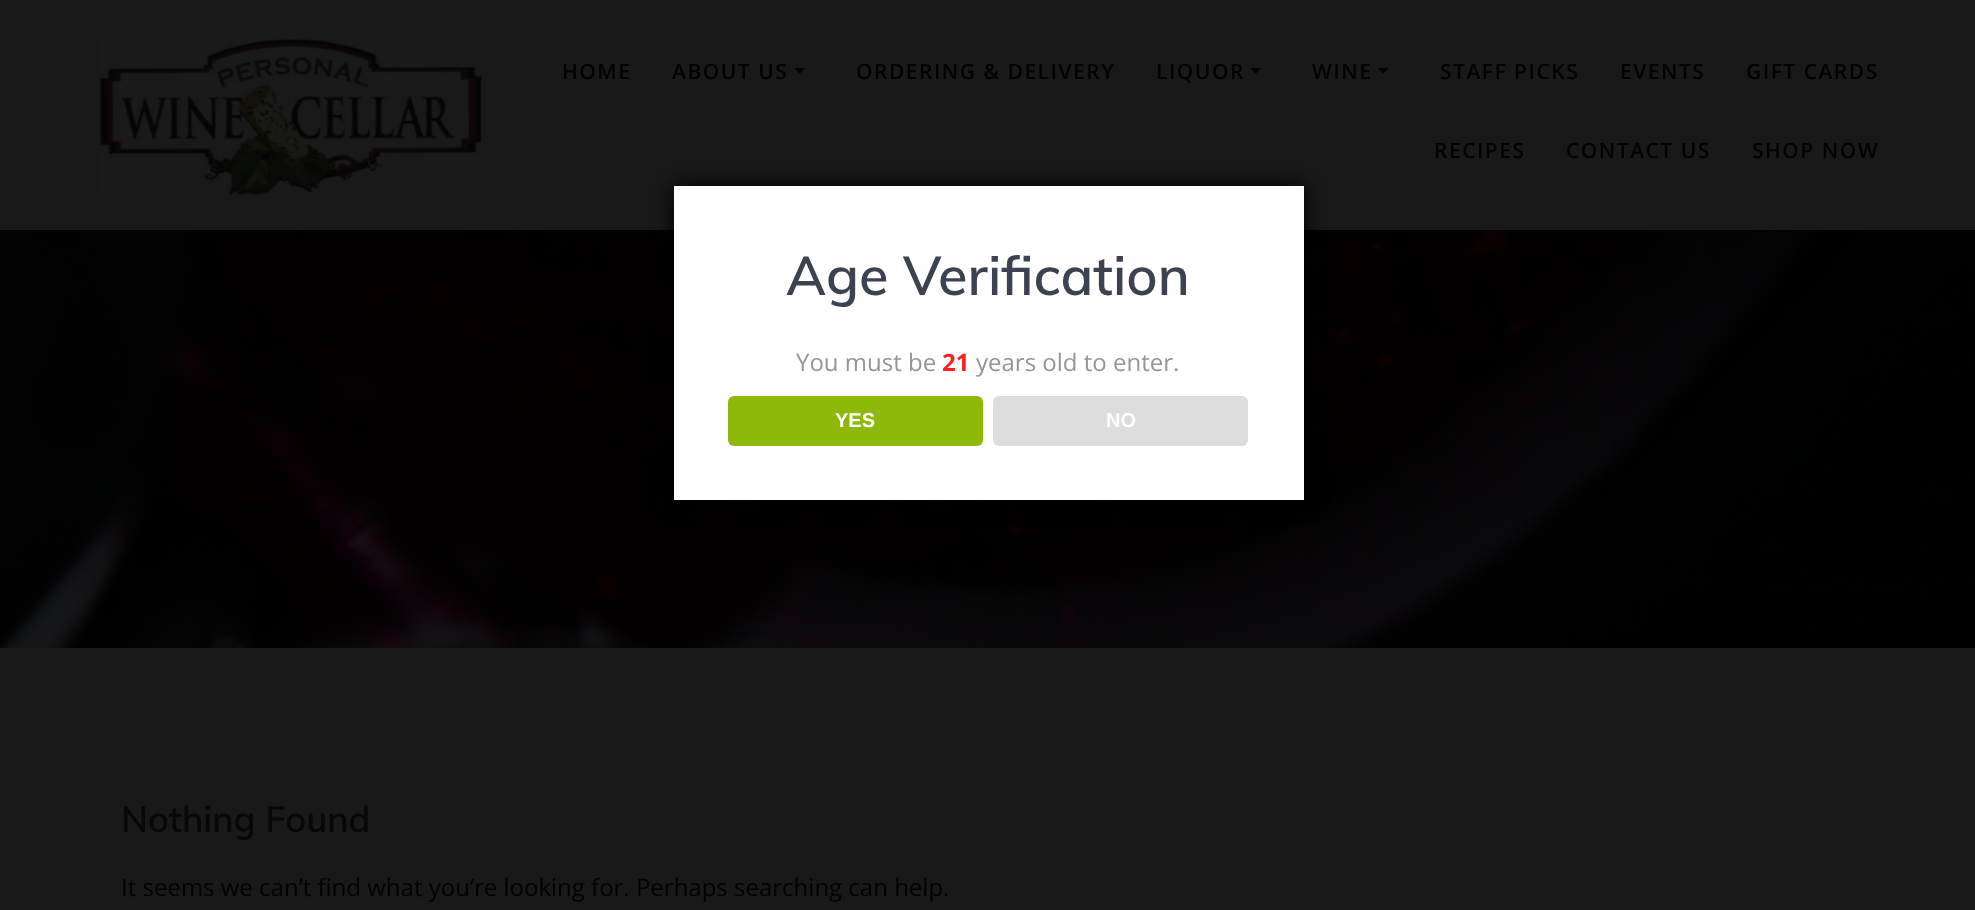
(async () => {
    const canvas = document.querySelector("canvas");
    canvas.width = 1975;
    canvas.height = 910;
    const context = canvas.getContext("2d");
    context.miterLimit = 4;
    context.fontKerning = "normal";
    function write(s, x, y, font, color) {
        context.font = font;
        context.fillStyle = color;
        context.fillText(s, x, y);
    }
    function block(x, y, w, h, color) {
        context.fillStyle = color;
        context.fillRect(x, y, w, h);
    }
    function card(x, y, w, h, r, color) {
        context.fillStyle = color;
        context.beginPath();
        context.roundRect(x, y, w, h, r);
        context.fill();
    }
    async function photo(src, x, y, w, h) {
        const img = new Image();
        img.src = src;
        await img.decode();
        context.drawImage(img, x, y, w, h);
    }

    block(0, 0, 1975, 910, "rgb(25, 25, 25)");
    await photo("media/1.png", 99, 39, 384, 156);
    context.letterSpacing = "1.5px";
    write("HOME", 562, 79, "600 21px Open Sans", "rgb(2, 2, 2)");
    write("ABOUT US", 672, 79, "600 21px Open Sans", "rgb(2, 2, 2)");
    await photo("media/2.png", 795, 68, 10, 6);
    write("ORDERING & DELIVERY", 856, 79, "600 21px Open Sans", "rgb(2, 2, 2)");
    write("LIQUOR", 1156, 79, "600 21px Open Sans", "rgb(2, 2, 2)");
    await photo("media/2.png", 1251, 68, 10, 6);
    write("WINE", 1312, 79, "600 21px Open Sans", "rgb(2, 2, 2)");
    await photo("media/3.png", 1378, 68, 10, 6);
    write("STAFF PICKS", 1440, 79, "600 21px Open Sans", "rgb(2, 2, 2)");
    write("EVENTS", 1620, 79, "600 21px Open Sans", "rgb(2, 2, 2)");
    write("GIFT CARDS", 1746, 79, "600 21px Open Sans", "rgb(2, 2, 2)");
    write("RECIPES", 1434, 158, "600 21px Open Sans", "rgb(2, 2, 2)");
    write("CONTACT US", 1566, 158, "600 21px Open Sans", "rgb(2, 2, 2)");
    write("SHOP NOW", 1752, 158, "600 21px Open Sans", "rgb(2, 2, 2)");
    await photo("media/4.png", 0, 230, 1975, 418);
    context.fillStyle = "rgb(0, 0, 0)";
    context.filter = "blur(11px)";
    context.beginPath();
    context.rect(674, 186, 630, 314);
    context.fill();
    context.filter = "none";
    block(674, 186, 630, 314, "rgb(255, 255, 255)");
    context.letterSpacing = "0px";
    write("Age Verification", 786, 295, "600 54px Muli", "rgb(60, 66, 79)");
    write("You must be", 796, 371, "24px Open Sans", "rgb(149, 149, 149)");
    write("21", 942, 371, "bold 24px Open Sans", "rgb(255, 31, 31)");
    write("years old to enter.", 976, 371, "24px Open Sans", "rgb(149, 149, 149)");
    card(728, 396, 255, 50, 6, "rgb(142, 185, 8)");
    write("YES", 835, 427, "bold 20px Liberation Sans", "rgb(255, 255, 255)");
    card(993, 396, 255, 50, 6, "rgb(221, 221, 221)");
    write("NO", 1106, 427, "bold 20px Liberation Sans", "rgb(255, 255, 255)");
    write("Nothing Found", 121, 832, "600 36px Muli", "rgb(6, 7, 8)");
    write("It seems we can’t find what you’re looking for. Perhaps searching can help.", 121, 896, "24px Open Sans", "rgb(2, 2, 2)");
})();
